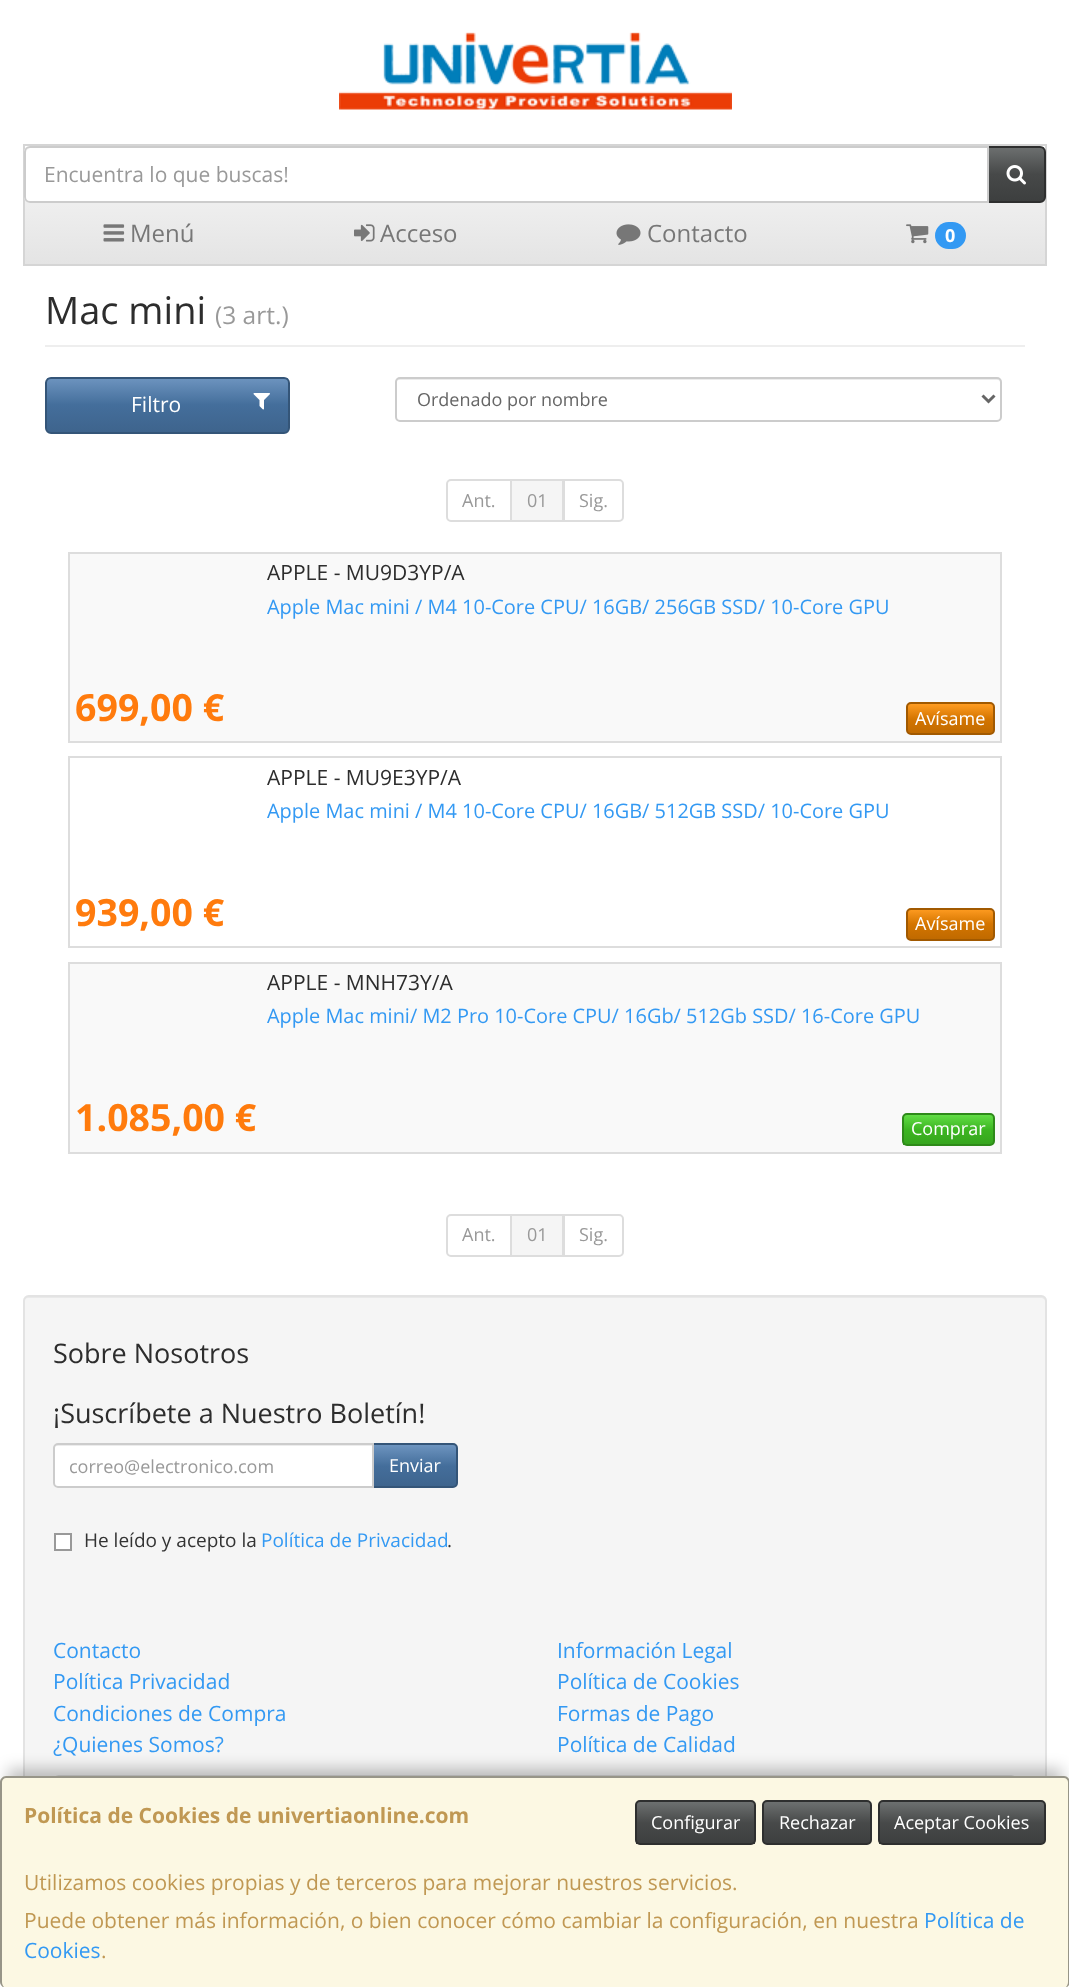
(async () => {
    const canvas = document.querySelector("canvas");
    canvas.width = 1069;
    canvas.height = 1987;
    const context = canvas.getContext("2d");
    context.miterLimit = 4;
    context.fontKerning = "normal";
    function write(s, x, y, font, color) {
        context.font = font;
        context.fillStyle = color;
        context.fillText(s, x, y);
    }
    function block(x, y, w, h, color) {
        context.fillStyle = color;
        context.fillRect(x, y, w, h);
    }
    function card(x, y, w, h, r, color) {
        context.fillStyle = color;
        context.beginPath();
        context.roundRect(x, y, w, h, r);
        context.fill();
    }
    async function photo(src, x, y, w, h) {
        const img = new Image();
        img.src = src;
        await img.decode();
        context.drawImage(img, x, y, w, h);
    }
    let gradient;

    block(0, 0, 1069, 1987, "rgb(255, 255, 255)");
    await photo("media/1.png", 339, 32, 393, 78);
    gradient = context.createLinearGradient(535, 145, 535, 264);
    gradient.addColorStop(0, "rgb(255, 255, 255)");
    gradient.addColorStop(0.5, "rgb(238, 238, 238)");
    gradient.addColorStop(1, "rgb(228, 228, 228)");
    context.fillStyle = gradient;
    context.fillRect(25, 154, 1020, 110);
    context.strokeStyle = "rgb(213, 213, 213)";
    context.lineWidth = 2;
    context.strokeRect(24, 145, 1022, 120);
    gradient = context.createLinearGradient(1016, 147, 1016, 201);
    gradient.addColorStop(0, "rgb(109, 112, 112)");
    gradient.addColorStop(0.5, "rgb(71, 73, 73)");
    gradient.addColorStop(1, "rgb(61, 63, 63)");
    context.fillStyle = gradient;
    context.fillRect(989, 147, 55, 54);
    context.beginPath();
    context.roundRect(988, 147, 57, 55, [0, 5, 5, 0]);
    context.strokeStyle = "rgb(46, 47, 47)";
    context.stroke();
    context.fillStyle = "rgb(255, 255, 255)";
    context.beginPath();
    context.roundRect(24, 146, 965, 57, [6, 0, 0, 6]);
    context.fill();
    context.fillStyle = "rgb(236, 236, 236)";
    context.beginPath();
    context.moveTo(30, 148);
    context.lineTo(987, 148);
    context.lineTo(987, 147);
    context.lineTo(31, 147);
    context.bezierCurveTo(28, 147, 26, 150, 26, 153);
    context.bezierCurveTo(26, 151, 28, 148, 30, 148);
    context.closePath();
    context.fill();
    context.beginPath();
    context.roundRect(25, 147, 963, 55, [5, 0, 0, 5]);
    context.strokeStyle = "rgb(204, 204, 204)";
    context.stroke();
    write("Encuentra lo que buscas!", 44, 182, "21px Open Sans", "rgb(153, 153, 153)");
    await photo("media/2.png", 1006, 165, 20, 20);
    await photo("media/3.png", 103, 224, 22, 18);
    write("Menú", 130, 242, "24px Open Sans", "rgb(119, 119, 119)");
    await photo("media/4.png", 354, 224, 21, 18);
    write("Acceso", 380, 242, "24px Open Sans", "rgb(119, 119, 119)");
    await photo("media/5.png", 616, 224, 25, 21);
    write("Contacto", 647, 242, "24px Open Sans", "rgb(119, 119, 119)");
    await photo("media/6.png", 906, 224, 23, 20);
    card(935, 222, 31, 27, 13.5, "rgb(51, 153, 243)");
    write("0", 945, 242, "bold 18px Open Sans", "rgb(255, 255, 255)");
    block(45, 345, 980, 2, "rgb(238, 238, 238)");
    write("Mac mini", 45, 324, "38px Open Sans", "rgb(45, 45, 45)");
    write("(3 art.)", 215, 324, "24.5px Open Sans", "rgb(153, 153, 153)");
    gradient = context.createLinearGradient(167, 378, 167, 432);
    gradient.addColorStop(0, "rgb(109, 148, 191)");
    gradient.addColorStop(0.5, "rgb(68, 110, 155)");
    gradient.addColorStop(1, "rgb(62, 100, 141)");
    context.fillStyle = gradient;
    context.fillRect(47, 378, 241, 54);
    context.beginPath();
    context.roundRect(46, 378, 243, 55, 5);
    context.strokeStyle = "rgb(52, 85, 120)";
    context.stroke();
    write("Filtro", 131, 412, "21px Open Sans", "rgb(255, 255, 255)");
    await photo("media/7.png", 253, 393, 17, 17);
    context.fillStyle = "rgb(236, 236, 236)";
    context.beginPath();
    context.moveTo(399, 380);
    context.lineTo(998, 380);
    context.bezierCurveTo(999, 380, 1000, 381, 1000, 382);
    context.lineTo(1000, 419);
    context.bezierCurveTo(1001, 419, 1001, 418, 1001, 417);
    context.lineTo(1001, 381);
    context.bezierCurveTo(1001, 379, 1000, 378, 998, 378);
    context.lineTo(399, 378);
    context.bezierCurveTo(397, 378, 396, 379, 396, 381);
    context.lineTo(396, 382);
    context.bezierCurveTo(396, 381, 397, 380, 399, 380);
    context.closePath();
    context.fill();
    context.beginPath();
    context.roundRect(396, 378, 605, 43, 4);
    context.strokeStyle = "rgb(204, 204, 204)";
    context.stroke();
    context.beginPath();
    context.moveTo(982.5, 395.5);
    context.lineTo(988.5, 401.5);
    context.lineTo(994.5, 395.5);
    context.strokeStyle = "rgb(102, 102, 102)";
    context.lineWidth = 3;
    context.stroke();
    write("Ordenado por nombre", 417, 406, "18px Open Sans", "rgb(102, 102, 102)");
    context.beginPath();
    context.roundRect(447, 480, 64, 41, [4, 0, 0, 4]);
    context.strokeStyle = "rgb(221, 221, 221)";
    context.lineWidth = 2;
    context.stroke();
    write("Ant.", 462, 507, "18px Open Sans", "rgb(153, 153, 153)");
    context.beginPath();
    context.roundRect(564, 480, 59, 41, [0, 4, 4, 0]);
    context.stroke();
    context.fillStyle = "rgb(245, 245, 245)";
    context.beginPath();
    context.rect(511, 480, 52, 41);
    context.fill();
    context.stroke();
    write("01", 527, 507, "18px Open Sans", "rgb(153, 153, 153)");
    write("Sig.", 579, 507, "18px Open Sans", "rgb(153, 153, 153)");
    context.fillStyle = "rgb(249, 249, 249)";
    context.beginPath();
    context.rect(69, 553, 932, 189);
    context.fill();
    context.stroke();
    write("APPLE - MU9D3YP/A", 267, 580, "21px Open Sans", "rgb(45, 45, 45)");
    write("Apple Mac mini / M4 10-Core CPU/ 16GB/ 256GB SSD/ 10-Core GPU", 267, 614, "19.95px Open Sans", "rgb(51, 153, 243)");
    write("699,00 €", 75, 721, "bold 37.5px Open Sans", "rgb(255, 123, 13)");
    gradient = context.createLinearGradient(950, 704, 950, 734);
    gradient.addColorStop(0, "rgb(255, 156, 33)");
    gradient.addColorStop(0.5, "rgb(212, 117, 0)");
    gradient.addColorStop(1, "rgb(192, 106, 0)");
    context.fillStyle = gradient;
    context.fillRect(908, 704, 85, 29);
    context.beginPath();
    context.roundRect(907, 703, 87, 31, 4);
    context.strokeStyle = "rgb(161, 89, 0)";
    context.stroke();
    write("Avísame", 915, 725, "18px Open Sans", "rgb(255, 255, 255)");
    context.strokeStyle = "rgb(221, 221, 221)";
    context.strokeRect(69, 757, 932, 190);
    write("APPLE - MU9E3YP/A", 267, 785, "21px Open Sans", "rgb(45, 45, 45)");
    write("Apple Mac mini / M4 10-Core CPU/ 16GB/ 512GB SSD/ 10-Core GPU", 267, 818, "19.95px Open Sans", "rgb(51, 153, 243)");
    write("939,00 €", 75, 926, "bold 37.5px Open Sans", "rgb(255, 123, 13)");
    gradient = context.createLinearGradient(950, 909, 950, 939);
    gradient.addColorStop(0, "rgb(255, 156, 33)");
    gradient.addColorStop(0.5, "rgb(212, 117, 0)");
    gradient.addColorStop(1, "rgb(192, 106, 0)");
    context.fillStyle = gradient;
    context.fillRect(908, 910, 85, 29);
    context.beginPath();
    context.roundRect(907, 909, 87, 31, 4);
    context.strokeStyle = "rgb(161, 89, 0)";
    context.stroke();
    write("Avísame", 915, 930, "18px Open Sans", "rgb(255, 255, 255)");
    context.fillStyle = "rgb(249, 249, 249)";
    context.beginPath();
    context.rect(69, 963, 932, 190);
    context.fill();
    context.strokeStyle = "rgb(221, 221, 221)";
    context.stroke();
    write("APPLE - MNH73Y/A", 267, 990, "21px Open Sans", "rgb(45, 45, 45)");
    write("Apple Mac mini/ M2 Pro 10-Core CPU/ 16Gb/ 512Gb SSD/ 16-Core GPU", 267, 1023, "19.95px Open Sans", "rgb(51, 153, 243)");
    write("1.085,00 €", 75, 1131, "bold 37.5px Open Sans", "rgb(255, 123, 13)");
    gradient = context.createLinearGradient(948, 1115, 948, 1145);
    gradient.addColorStop(0, "rgb(97, 221, 69)");
    gradient.addColorStop(0.5, "rgb(60, 181, 33)");
    gradient.addColorStop(1, "rgb(54, 164, 30)");
    context.fillStyle = gradient;
    context.fillRect(903, 1115, 90, 30);
    context.beginPath();
    context.roundRect(903, 1114, 91, 31, 4);
    context.strokeStyle = "rgb(46, 138, 25)";
    context.stroke();
    write("Comprar", 911, 1135, "18px Open Sans", "rgb(255, 255, 255)");
    context.beginPath();
    context.roundRect(447, 1215, 64, 41, [4, 0, 0, 4]);
    context.strokeStyle = "rgb(221, 221, 221)";
    context.stroke();
    write("Ant.", 462, 1241, "18px Open Sans", "rgb(153, 153, 153)");
    context.beginPath();
    context.roundRect(564, 1215, 59, 41, [0, 4, 4, 0]);
    context.stroke();
    context.fillStyle = "rgb(245, 245, 245)";
    context.beginPath();
    context.rect(511, 1215, 52, 41);
    context.fill();
    context.stroke();
    write("01", 527, 1241, "18px Open Sans", "rgb(153, 153, 153)");
    write("Sig.", 579, 1241, "18px Open Sans", "rgb(153, 153, 153)");
    card(23, 1295, 1024, 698, 6, "rgb(245, 245, 245)");
    context.fillStyle = "rgb(233, 233, 233)";
    context.beginPath();
    context.moveTo(28, 1298);
    context.lineTo(1041, 1298);
    context.bezierCurveTo(1043, 1298, 1046, 1300, 1046, 1302);
    context.bezierCurveTo(1046, 1299, 1044, 1296, 1041, 1296);
    context.lineTo(29, 1296);
    context.bezierCurveTo(26, 1296, 24, 1299, 24, 1302);
    context.bezierCurveTo(24, 1300, 26, 1298, 28, 1298);
    context.closePath();
    context.fill();
    context.beginPath();
    context.roundRect(24, 1296, 1022, 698, 5);
    context.strokeStyle = "rgb(227, 227, 227)";
    context.stroke();
    write("Sobre Nosotros", 53, 1363, "27px Open Sans", "rgb(45, 45, 45)");
    write("¡Suscríbete a Nuestro Boletín!", 53, 1423, "27px Open Sans", "rgb(45, 45, 45)");
    gradient = context.createLinearGradient(415, 1445, 415, 1487);
    gradient.addColorStop(0, "rgb(109, 148, 191)");
    gradient.addColorStop(0.5, "rgb(68, 110, 155)");
    gradient.addColorStop(1, "rgb(62, 100, 141)");
    context.fillStyle = gradient;
    context.fillRect(374, 1445, 82, 41);
    context.beginPath();
    context.roundRect(373, 1444, 84, 43, [0, 4, 4, 0]);
    context.strokeStyle = "rgb(52, 85, 120)";
    context.stroke();
    context.fillStyle = "rgb(255, 255, 255)";
    context.beginPath();
    context.roundRect(53, 1443, 321, 45, [5, 0, 0, 5]);
    context.fill();
    context.fillStyle = "rgb(236, 236, 236)";
    context.beginPath();
    context.moveTo(57, 1446);
    context.lineTo(372, 1446);
    context.lineTo(372, 1445);
    context.lineTo(57, 1445);
    context.bezierCurveTo(55, 1445, 54, 1447, 54, 1449);
    context.bezierCurveTo(54, 1447, 55, 1446, 57, 1446);
    context.closePath();
    context.fill();
    context.beginPath();
    context.roundRect(54, 1444, 319, 43, [4, 0, 0, 4]);
    context.strokeStyle = "rgb(204, 204, 204)";
    context.stroke();
    write("correo@electronico.com", 69, 1473, "18px Open Sans", "rgb(153, 153, 153)");
    write("Enviar", 389, 1472, "18px Open Sans", "rgb(255, 255, 255)");
    context.beginPath();
    context.rect(55, 1534, 16, 16);
    context.fill();
    context.strokeStyle = "rgb(153, 153, 153)";
    context.stroke();
    write("He leído y acepto la", 84, 1547, "19px Open Sans", "rgb(51, 51, 51)");
    write("Política de Privacidad", 261, 1547, "19px Open Sans", "rgb(51, 153, 243)");
    write(".", 447, 1547, "19px Open Sans", "rgb(51, 51, 51)");
    write("Contacto", 53, 1658, "21px Open Sans", "rgb(51, 153, 243)");
    write("Información Legal", 557, 1658, "21px Open Sans", "rgb(51, 153, 243)");
    write("Política Privacidad", 53, 1689, "21px Open Sans", "rgb(51, 153, 243)");
    write("Política de Cookies", 557, 1689, "21px Open Sans", "rgb(51, 153, 243)");
    write("Condiciones de Compra", 53, 1721, "21px Open Sans", "rgb(51, 153, 243)");
    write("Formas de Pago", 557, 1721, "21px Open Sans", "rgb(51, 153, 243)");
    write("¿Quienes Somos?", 53, 1752, "21px Open Sans", "rgb(51, 153, 243)");
    write("Política de Calidad", 557, 1752, "21px Open Sans", "rgb(51, 153, 243)");
    context.beginPath();
    context.roundRect(54, 1776, 962, 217, 5);
    context.strokeStyle = "rgb(221, 221, 221)";
    context.stroke();
    context.fillStyle = "rgba(0, 0, 0, 0.25)";
    context.filter = "blur(7.5px)";
    context.beginPath();
    context.rect(8, 1769, 1054, 196);
    context.fill();
    context.filter = "none";
    card(0, 1776, 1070, 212, 6, "rgb(252, 248, 227)");
    context.fillStyle = "rgba(0, 0, 0, 0.4)";
    context.beginPath();
    context.moveTo(6, 1776);
    context.lineTo(1064, 1776);
    context.bezierCurveTo(1067, 1776, 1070, 1779, 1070, 1782);
    context.lineTo(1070, 1982);
    context.bezierCurveTo(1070, 1985, 1067, 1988, 1064, 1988);
    context.lineTo(6, 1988);
    context.bezierCurveTo(3, 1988, 0, 1985, 0, 1982);
    context.lineTo(0, 1782);
    context.bezierCurveTo(0, 1779, 3, 1776, 6, 1776);
    context.closePath();
    context.moveTo(6, 1778);
    context.lineTo(1064, 1778);
    context.bezierCurveTo(1066, 1778, 1068, 1780, 1068, 1782);
    context.lineTo(1068, 1982);
    context.bezierCurveTo(1068, 1985, 1066, 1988, 1064, 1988);
    context.lineTo(6, 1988);
    context.bezierCurveTo(4, 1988, 2, 1985, 2, 1982);
    context.lineTo(2, 1782);
    context.bezierCurveTo(2, 1780, 4, 1778, 6, 1778);
    context.closePath();
    context.fill("evenodd");
    write("Política de Cookies de univertiaonline.com", 24, 1823, "bold 21px Open Sans", "rgb(192, 152, 83)");
    gradient = context.createLinearGradient(695, 1802, 695, 1844);
    gradient.addColorStop(0, "rgb(109, 112, 112)");
    gradient.addColorStop(0.5, "rgb(71, 73, 73)");
    gradient.addColorStop(1, "rgb(61, 63, 63)");
    context.fillStyle = gradient;
    context.fillRect(636, 1802, 119, 42);
    context.beginPath();
    context.roundRect(636, 1801, 119, 43, 4);
    context.strokeStyle = "rgb(46, 47, 47)";
    context.stroke();
    write("Configurar", 651, 1829, "18px Open Sans", "rgb(255, 255, 255)");
    gradient = context.createLinearGradient(817, 1802, 817, 1844);
    gradient.addColorStop(0, "rgb(109, 112, 112)");
    gradient.addColorStop(0.5, "rgb(71, 73, 73)");
    gradient.addColorStop(1, "rgb(61, 63, 63)");
    context.fillStyle = gradient;
    context.fillRect(764, 1802, 106, 41);
    context.beginPath();
    context.roundRect(763, 1801, 108, 43, 4);
    context.stroke();
    write("Rechazar", 779, 1829, "18px Open Sans", "rgb(255, 255, 255)");
    gradient = context.createLinearGradient(962, 1802, 962, 1844);
    gradient.addColorStop(0, "rgb(109, 112, 112)");
    gradient.addColorStop(0.5, "rgb(71, 73, 73)");
    gradient.addColorStop(1, "rgb(61, 63, 63)");
    context.fillStyle = gradient;
    context.fillRect(879, 1802, 165, 42);
    context.beginPath();
    context.roundRect(879, 1801, 166, 43, 4);
    context.stroke();
    write("Aceptar Cookies", 894, 1829, "18px Open Sans", "rgb(255, 255, 255)");
    write("Utilizamos cookies propias y de terceros para mejorar nuestros servicios.", 24, 1890, "21px Open Sans", "rgb(192, 152, 83)");
    write("Puede obtener más información, o bien conocer cómo cambiar la configuración, en nuestra", 24, 1928, "21px Open Sans", "rgb(192, 152, 83)");
    write("Política de", 924, 1928, "21px Open Sans", "rgb(51, 153, 243)");
    write("Cookies", 24, 1958, "21px Open Sans", "rgb(51, 153, 243)");
    write(".", 101, 1958, "21px Open Sans", "rgb(192, 152, 83)");
})();
